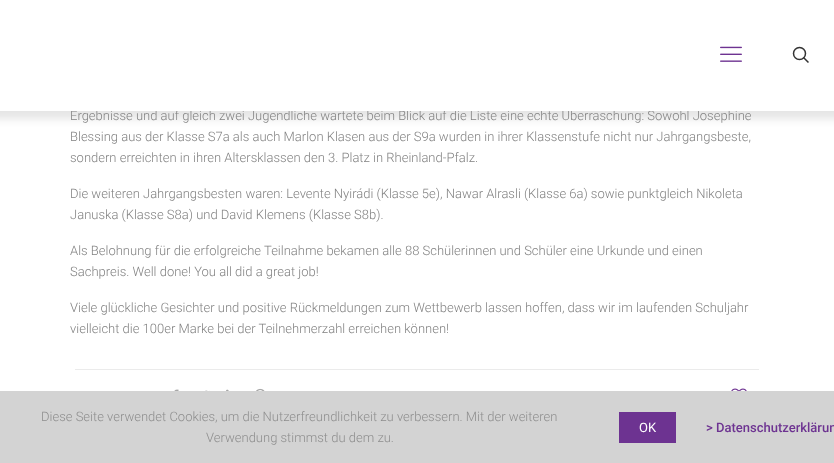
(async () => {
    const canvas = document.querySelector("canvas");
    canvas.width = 834;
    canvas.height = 463;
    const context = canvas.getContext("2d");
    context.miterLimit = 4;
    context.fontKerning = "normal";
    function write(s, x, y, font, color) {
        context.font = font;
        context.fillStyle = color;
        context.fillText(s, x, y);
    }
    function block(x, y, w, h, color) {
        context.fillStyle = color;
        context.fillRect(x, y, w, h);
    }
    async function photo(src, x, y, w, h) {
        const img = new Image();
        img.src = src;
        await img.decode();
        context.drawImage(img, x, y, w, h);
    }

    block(0, 0, 834, 463, "rgb(255, 255, 255)");
    context.fillStyle = "rgba(0, 0, 0, 0.1)";
    context.filter = "blur(4px)";
    context.beginPath();
    context.rect(-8, -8, 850, 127);
    context.fill();
    context.filter = "none";
    write("Ergebnisse und auf gleich zwei Jugendliche wartete beim Blick auf die Liste eine echte Überraschung: Sowohl Josephine", 70, 120, "300 13px Roboto", "rgb(130, 130, 130)");
    block(0, 0, 834, 111, "rgb(255, 255, 255)");
    await photo("media/1.png", 720, 46, 22, 16);
    context.beginPath();
    context.arc(799.5, 53.5, 6, 0, Math.PI * 2);
    context.strokeStyle = "rgb(51, 51, 51)";
    context.lineWidth = 1.5;
    context.stroke();
    context.beginPath();
    context.moveTo(803.5, 57.5);
    context.lineTo(808.5, 62.5);
    context.stroke();
    write("Blessing aus der Klasse S7a als auch Marlon Klasen aus der S9a wurden in ihrer Klassenstufe nicht nur Jahrgangsbeste,", 70, 141, "300 13px Roboto", "rgb(130, 130, 130)");
    write("sondern erreichten in ihren Altersklassen den 3. Platz in Rheinland-Pfalz.", 70, 162, "300 13px Roboto", "rgb(130, 130, 130)");
    write("Die weiteren Jahrgangsbesten waren: Levente Nyirádi (Klasse 5e), Nawar Alrasli (Klasse 6a) sowie punktgleich Nikoleta", 70, 198, "300 13px Roboto", "rgb(130, 130, 130)");
    write("Januska (Klasse S8a) und David Klemens (Klasse S8b).", 70, 219, "300 13px Roboto", "rgb(130, 130, 130)");
    write("Als Belohnung für die erfolgreiche Teilnahme bekamen alle 88 Schülerinnen und Schüler eine Urkunde und einen", 70, 255, "300 13px Roboto", "rgb(130, 130, 130)");
    write("Sachpreis. Well done! You all did a great job!", 70, 276, "300 13px Roboto", "rgb(130, 130, 130)");
    write("Viele glückliche Gesichter und positive Rückmeldungen zum Wettbewerb lassen hoffen, dass wir im laufenden Schuljahr", 70, 312, "300 13px Roboto", "rgb(130, 130, 130)");
    write("vielleicht die 100er Marke bei der Teilnehmerzahl erreichen können!", 70, 333, "300 13px Roboto", "rgb(130, 130, 130)");
    block(75, 369, 684, 1, "rgb(235, 235, 235)");
    await photo("media/2.png", 174, 389, 5, 2);
    await photo("media/3.png", 205, 390, 5, 1);
    await photo("media/4.png", 226, 389, 3, 2);
    await photo("media/5.png", 256, 388, 9, 3);
    await photo("media/6.png", 731, 388, 16, 3);
    block(0, 391, 834, 72, "rgb(211, 211, 211)");
    write("Diese Seite verwendet Cookies, um die Nutzerfreundlichkeit zu verbessern. Mit der weiteren", 41, 421, "300 13px Roboto", "rgb(142, 142, 142)");
    write("Verwendung stimmst du dem zu.", 206, 442, "300 13px Roboto", "rgb(142, 142, 142)");
    block(619, 412, 57, 31, "rgb(109, 51, 145)");
    write("OK", 639, 432, "13px Roboto", "rgb(255, 255, 255)");
    write("> Datenschutzerklärun", 706, 432, "500 13px Roboto", "rgb(109, 51, 145)");
})();
